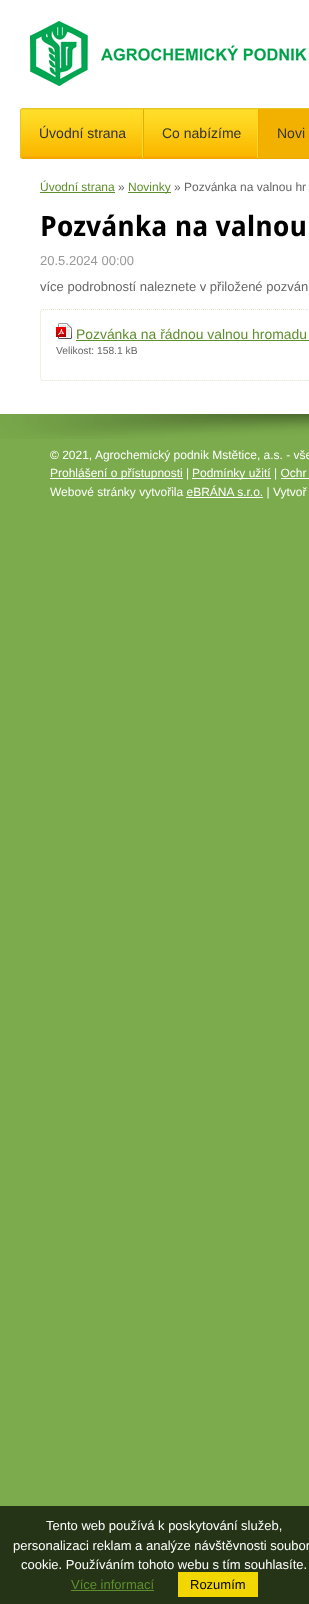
(async () => {
    const canvas = document.querySelector("canvas");
    canvas.width = 309;
    canvas.height = 1604;
    const context = canvas.getContext("2d");
    context.miterLimit = 4;
    context.fontKerning = "normal";
    function write(s, x, y, font, color) {
        context.font = font;
        context.fillStyle = color;
        context.fillText(s, x, y);
    }
    function block(x, y, w, h, color) {
        context.fillStyle = color;
        context.fillRect(x, y, w, h);
    }
    async function photo(src, x, y, w, h) {
        const img = new Image();
        img.src = src;
        await img.decode();
        context.drawImage(img, x, y, w, h);
    }

    block(0, 0, 309, 1604, "rgb(123, 171, 76)");
    block(0, 0, 309, 414, "rgb(255, 255, 255)");
    await photo("media/1.png", 30, 21, 277, 65);
    await photo("media/2.png", 20, 109, 237, 49);
    context.beginPath();
    context.moveTo(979, 158);
    context.lineTo(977, 158.5);
    context.lineTo(23, 158.5);
    context.lineTo(21, 158);
    context.strokeStyle = "rgb(233, 169, 0)";
    context.stroke();
    context.beginPath();
    context.moveTo(21, 158);
    context.lineTo(20.5, 156);
    context.lineTo(20.5, 111);
    context.lineTo(21, 109);
    context.lineTo(23, 108.5);
    context.lineTo(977, 108.5);
    context.lineTo(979, 109);
    context.lineTo(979.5, 111);
    context.lineTo(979.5, 156);
    context.lineTo(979, 158);
    context.strokeStyle = "rgb(227, 198, 37)";
    context.stroke();
    await photo("media/3.png", 142, 109, 2, 49);
    write("Úvodní strana", 39, 138, "14px Liberation Sans", "rgb(51, 51, 51)");
    await photo("media/3.png", 257, 109, 2, 49);
    write("Co nabízíme", 162, 138, "14px Liberation Sans", "rgb(51, 51, 51)");
    block(259, 109, 50, 49, "rgb(242, 177, 0)");
    write("Novi", 277, 138, "14px Liberation Sans", "rgb(51, 51, 51)");
    write("Úvodní strana", 40, 191, "12px Liberation Sans", "rgb(94, 143, 45)");
    block(40, 192, 75, 1, "rgb(94, 143, 45)");
    write("»", 118, 191, "12px Liberation Sans", "rgb(102, 102, 102)");
    block(128, 192, 43, 1, "rgb(94, 143, 45)");
    write("Novinky", 128, 191, "12px Liberation Sans", "rgb(94, 143, 45)");
    write("» Pozvánka na valnou hr", 174, 191, "12px Liberation Sans", "rgb(102, 102, 102)");
    write("Pozvánka na valnou", 40, 236, "bold 28px Droid Sans", "rgb(0, 0, 0)");
    write("20.5.2024 00:00", 40, 265, "13px Liberation Sans", "rgb(153, 153, 153)");
    write("více podrobností naleznete v přiložené pozván", 40, 291, "13px Liberation Sans", "rgb(102, 102, 102)");
    context.beginPath();
    context.moveTo(43, 309.5);
    context.lineTo(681, 309.5);
    context.bezierCurveTo(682.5, 309.5, 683.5, 310.5, 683.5, 312);
    context.lineTo(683.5, 378);
    context.bezierCurveTo(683.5, 379.5, 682.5, 380.5, 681, 380.5);
    context.lineTo(43, 380.5);
    context.bezierCurveTo(41.5, 380.5, 40.5, 379.5, 40.5, 378);
    context.lineTo(40.5, 312);
    context.bezierCurveTo(40.5, 310.5, 41.5, 309.5, 43, 309.5);
    context.closePath();
    context.strokeStyle = "rgb(217, 230, 203)";
    context.setLineDash([1, 1]);
    context.stroke();
    await photo("media/4.png", 56, 323, 16, 16);
    write("Pozvánka na řádnou valnou hromadu", 76, 339, "13.9px Liberation Sans", "rgb(94, 143, 45)");
    block(76, 340, 233, 1, "rgb(94, 143, 45)");
    write("Velikost: 158.1 kB", 56, 354, "10.25px Liberation Sans", "rgb(102, 102, 102)");
    await photo("media/5.png", 0, 414, 309, 25);
    write("© 2021, Agrochemický podnik Mstětice, a.s. - vše", 50, 459, "12px Liberation Sans", "rgb(255, 255, 255)");
    block(50, 478, 133, 1, "rgb(255, 255, 255)");
    write("Prohlášení o přístupnosti |", 50, 477, "12px Liberation Sans", "rgb(255, 255, 255)");
    block(192, 478, 79, 1, "rgb(255, 255, 255)");
    write("Podmínky užití | Ochr", 192, 477, "12px Liberation Sans", "rgb(255, 255, 255)");
    block(281, 478, 28, 1, "rgb(255, 255, 255)");
    write("Webové stránky vytvořila eBRÁNA s.r.o. | Vytvoř", 50, 496, "12px Liberation Sans", "rgb(255, 255, 255)");
    block(186, 497, 77, 1, "rgb(255, 255, 255)");
    block(0, 1506, 309, 98, "rgb(37, 51, 23)");
    write("Tento web používá k poskytování služeb,", 46, 1530, "13px Liberation Sans", "rgb(255, 255, 255)");
    write("personalizaci reklam a analýze návštěvnosti soubor", 13, 1550, "13px Liberation Sans", "rgb(255, 255, 255)");
    write("cookie. Používáním tohoto webu s tím souhlasíte.", 21, 1569, "13px Liberation Sans", "rgb(255, 255, 255)");
    write("Více informací", 71, 1589, "13px Liberation Sans", "rgb(94, 143, 45)");
    block(71, 1590, 83, 1, "rgb(94, 143, 45)");
    block(178, 1572, 80, 25, "rgb(241, 214, 0)");
    write("Rozumím", 190, 1589, "13px Liberation Sans", "rgb(0, 0, 0)");
})();
